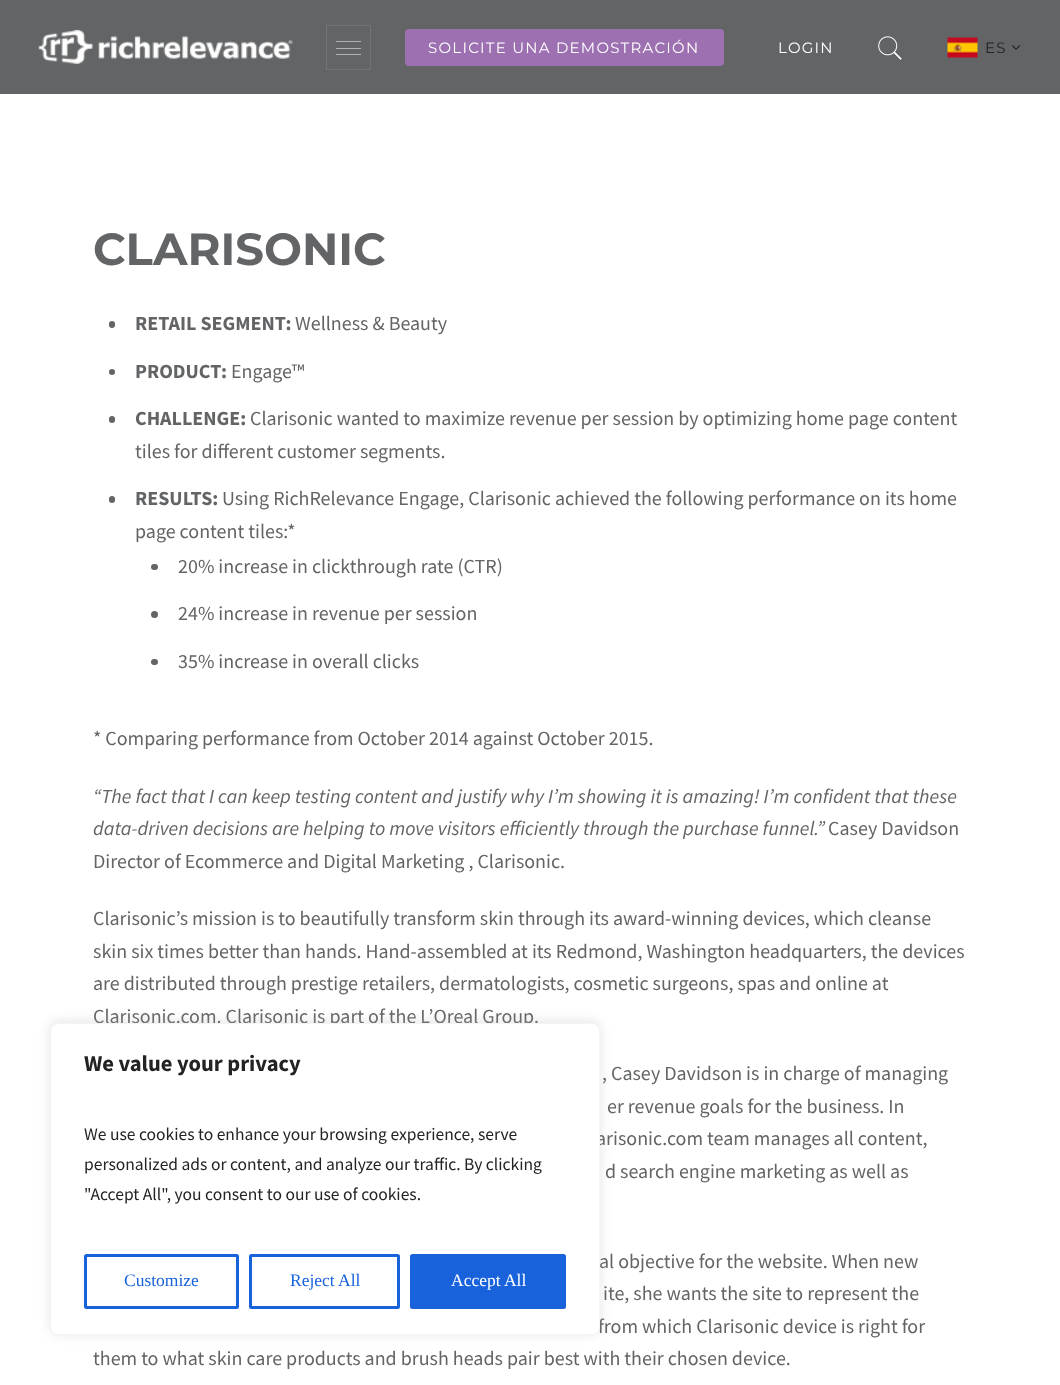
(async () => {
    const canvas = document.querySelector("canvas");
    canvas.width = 1060;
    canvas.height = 1385;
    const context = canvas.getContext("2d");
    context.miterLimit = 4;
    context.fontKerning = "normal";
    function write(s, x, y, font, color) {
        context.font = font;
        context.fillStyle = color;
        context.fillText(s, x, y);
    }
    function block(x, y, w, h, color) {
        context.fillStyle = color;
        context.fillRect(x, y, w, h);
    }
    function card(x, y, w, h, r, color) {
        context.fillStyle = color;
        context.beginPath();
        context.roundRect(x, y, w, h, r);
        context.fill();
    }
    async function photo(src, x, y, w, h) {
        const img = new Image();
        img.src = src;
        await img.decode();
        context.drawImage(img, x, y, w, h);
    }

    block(0, 0, 1060, 1385, "rgb(255, 255, 255)");
    block(0, 0, 1060, 94, "rgb(98, 100, 102)");
    await photo("media/1.png", 38, 29, 255, 35);
    context.strokeStyle = "rgb(114, 116, 117)";
    context.strokeRect(326.5, 25.5, 44, 44);
    block(336, 48, 25, 1, "rgb(177, 178, 179)");
    block(336, 41, 25, 1, "rgb(177, 178, 179)");
    block(336, 54, 25, 1, "rgb(177, 178, 179)");
    card(405, 29, 319, 37, 4, "rgb(157, 112, 177)");
    context.letterSpacing = "1.25px";
    write("SOLICITE UNA DEMOSTRACIÓN", 428, 53, "15px Montserrat", "rgb(255, 255, 255)");
    write("LOGIN", 778, 53, "15px Montserrat", "rgb(255, 255, 255)");
    await photo("media/2.png", 878, 36, 24, 24);
    await photo("media/3.png", 947, 37, 31, 21);
    write("ES", 985, 53, "15px Montserrat", "rgb(35, 35, 35)");
    await photo("media/4.png", 1012, 45, 9, 5);
    context.letterSpacing = "0px";
    write("CLARISONIC", 93, 265, "bold 45px Montserrat", "rgb(98, 100, 102)");
    card(109, 321, 6, 7, 3, "rgb(98, 100, 102)");
    write("RETAIL SEGMENT:", 135, 330, "bold 20px Source Sans Pro", "rgb(98, 100, 102)");
    write("Wellness & Beauty", 295, 330, "20px Source Sans Pro", "rgb(98, 100, 102)");
    context.beginPath();
    context.arc(112, 372, 3, 0, Math.PI * 2);
    context.fill();
    write("PRODUCT:", 135, 378, "bold 20px Source Sans Pro", "rgb(98, 100, 102)");
    write("Engage™", 231, 378, "20px Source Sans Pro", "rgb(98, 100, 102)");
    card(109, 416, 6, 7, 3, "rgb(98, 100, 102)");
    write("CHALLENGE:", 135, 425, "bold 20px Source Sans Pro", "rgb(98, 100, 102)");
    write("Clarisonic wanted to maximize revenue per session by optimizing home page content", 250, 425, "20px Source Sans Pro", "rgb(98, 100, 102)");
    write("tiles for different customer segments.", 135, 458, "20px Source Sans Pro", "rgb(98, 100, 102)");
    card(109, 496, 6, 7, 3, "rgb(98, 100, 102)");
    write("RESULTS:", 135, 505, "bold 20px Source Sans Pro", "rgb(98, 100, 102)");
    write("Using RichRelevance Engage, Clarisonic achieved the following performance on its home", 222, 505, "20px Source Sans Pro", "rgb(98, 100, 102)");
    write("page content tiles:*", 135, 538, "20px Source Sans Pro", "rgb(98, 100, 102)");
    card(151, 564, 7, 6, 3, "rgb(98, 100, 102)");
    write("20% increase in clickthrough rate (CTR)", 178, 573, "20px Source Sans Pro", "rgb(98, 100, 102)");
    context.beginPath();
    context.arc(154.5, 614.5, 3.5, 0, Math.PI * 2);
    context.fill();
    write("24% increase in revenue per session", 178, 620, "20px Source Sans Pro", "rgb(98, 100, 102)");
    card(151, 659, 7, 6, 3, "rgb(98, 100, 102)");
    write("35% increase in overall clicks", 178, 668, "20px Source Sans Pro", "rgb(98, 100, 102)");
    write("* Comparing performance from October 2014 against October 2015.", 93, 745, "20px Source Sans Pro", "rgb(98, 100, 102)");
    write("“The fact that I can keep testing content and justify why I’m showing it is amazing! I’m confident that these", 93, 803, "italic 20px Source Sans Pro", "rgb(98, 100, 102)");
    write("data-driven decisions are helping to move visitors efficiently through the purchase funnel.”", 93, 835, "italic 20px Source Sans Pro", "rgb(98, 100, 102)");
    write("Casey Davidson", 828, 835, "20px Source Sans Pro", "rgb(98, 100, 102)");
    write("Director of Ecommerce and Digital Marketing , Clarisonic.", 93, 868, "20px Source Sans Pro", "rgb(98, 100, 102)");
    write("Clarisonic’s mission is to beautifully transform skin through its award-winning devices, which cleanse", 93, 925, "20px Source Sans Pro", "rgb(98, 100, 102)");
    write("skin six times better than hands. Hand-assembled at its Redmond, Washington headquarters, the devices", 93, 958, "20px Source Sans Pro", "rgb(98, 100, 102)");
    write("are distributed through prestige retailers, dermatologists, cosmetic surgeons, spas and online at", 93, 990, "20px Source Sans Pro", "rgb(98, 100, 102)");
    write("Clarisonic.com. Clarisonic is part of the L’Oreal Group.", 93, 1023, "20px Source Sans Pro", "rgb(98, 100, 102)");
    write(", Casey Davidson is in charge of managing", 602, 1080, "20px Source Sans Pro", "rgb(98, 100, 102)");
    write("er revenue goals for the business. In", 607, 1113, "20px Source Sans Pro", "rgb(98, 100, 102)");
    write("arisonic.com team manages all content,", 596, 1145, "20px Source Sans Pro", "rgb(98, 100, 102)");
    write("d search engine marketing as well as", 605, 1178, "20px Source Sans Pro", "rgb(98, 100, 102)");
    write("al objective for the website. When new", 599, 1268, "20px Source Sans Pro", "rgb(98, 100, 102)");
    write("ite, she wants the site to represent the", 603, 1300, "20px Source Sans Pro", "rgb(98, 100, 102)");
    write("from which Clarisonic device is right for", 598, 1333, "20px Source Sans Pro", "rgb(98, 100, 102)");
    write("them to what skin care products and brush heads pair best with their chosen device.", 93, 1365, "20px Source Sans Pro", "rgb(98, 100, 102)");
    context.fillStyle = "rgba(172, 171, 171, 0.3)";
    context.filter = "blur(6px)";
    context.beginPath();
    context.roundRect(50, 1021, 550, 313, 8);
    context.fill();
    context.filter = "none";
    context.fillStyle = "rgb(255, 255, 255)";
    context.beginPath();
    context.roundRect(50.5, 1023.5, 549, 311, 7.5);
    context.fill();
    context.strokeStyle = "rgb(244, 244, 244)";
    context.stroke();
    write("We value your privacy", 84, 1071, "bold 22.5px Source Sans Pro", "rgb(35, 35, 35)");
    write("We use cookies to enhance your browsing experience, serve", 84, 1140, "17.5px Source Sans Pro", "rgb(35, 35, 35)");
    write("personalized ads or content, and analyze our traffic. By clicking", 84, 1170, "17.5px Source Sans Pro", "rgb(35, 35, 35)");
    write("\"Accept All\", you consent to our use of cookies.", 84, 1200, "17.5px Source Sans Pro", "rgb(35, 35, 35)");
    context.beginPath();
    context.roundRect(85.5, 1255.5, 152, 52, 1);
    context.strokeStyle = "rgb(24, 99, 220)";
    context.lineWidth = 3;
    context.stroke();
    write("Customize", 124, 1286, "17.5px Liberation Serif", "rgb(24, 99, 220)");
    context.beginPath();
    context.roundRect(250.5, 1255.5, 148, 52, 1);
    context.stroke();
    write("Reject All", 290, 1286, "17.5px Liberation Serif", "rgb(24, 99, 220)");
    context.beginPath();
    context.roundRect(411.5, 1255.5, 153, 52, 1);
    context.fill();
    context.stroke();
    write("Accept All", 451, 1286, "17.5px Liberation Serif", "rgb(255, 255, 255)");
})();
